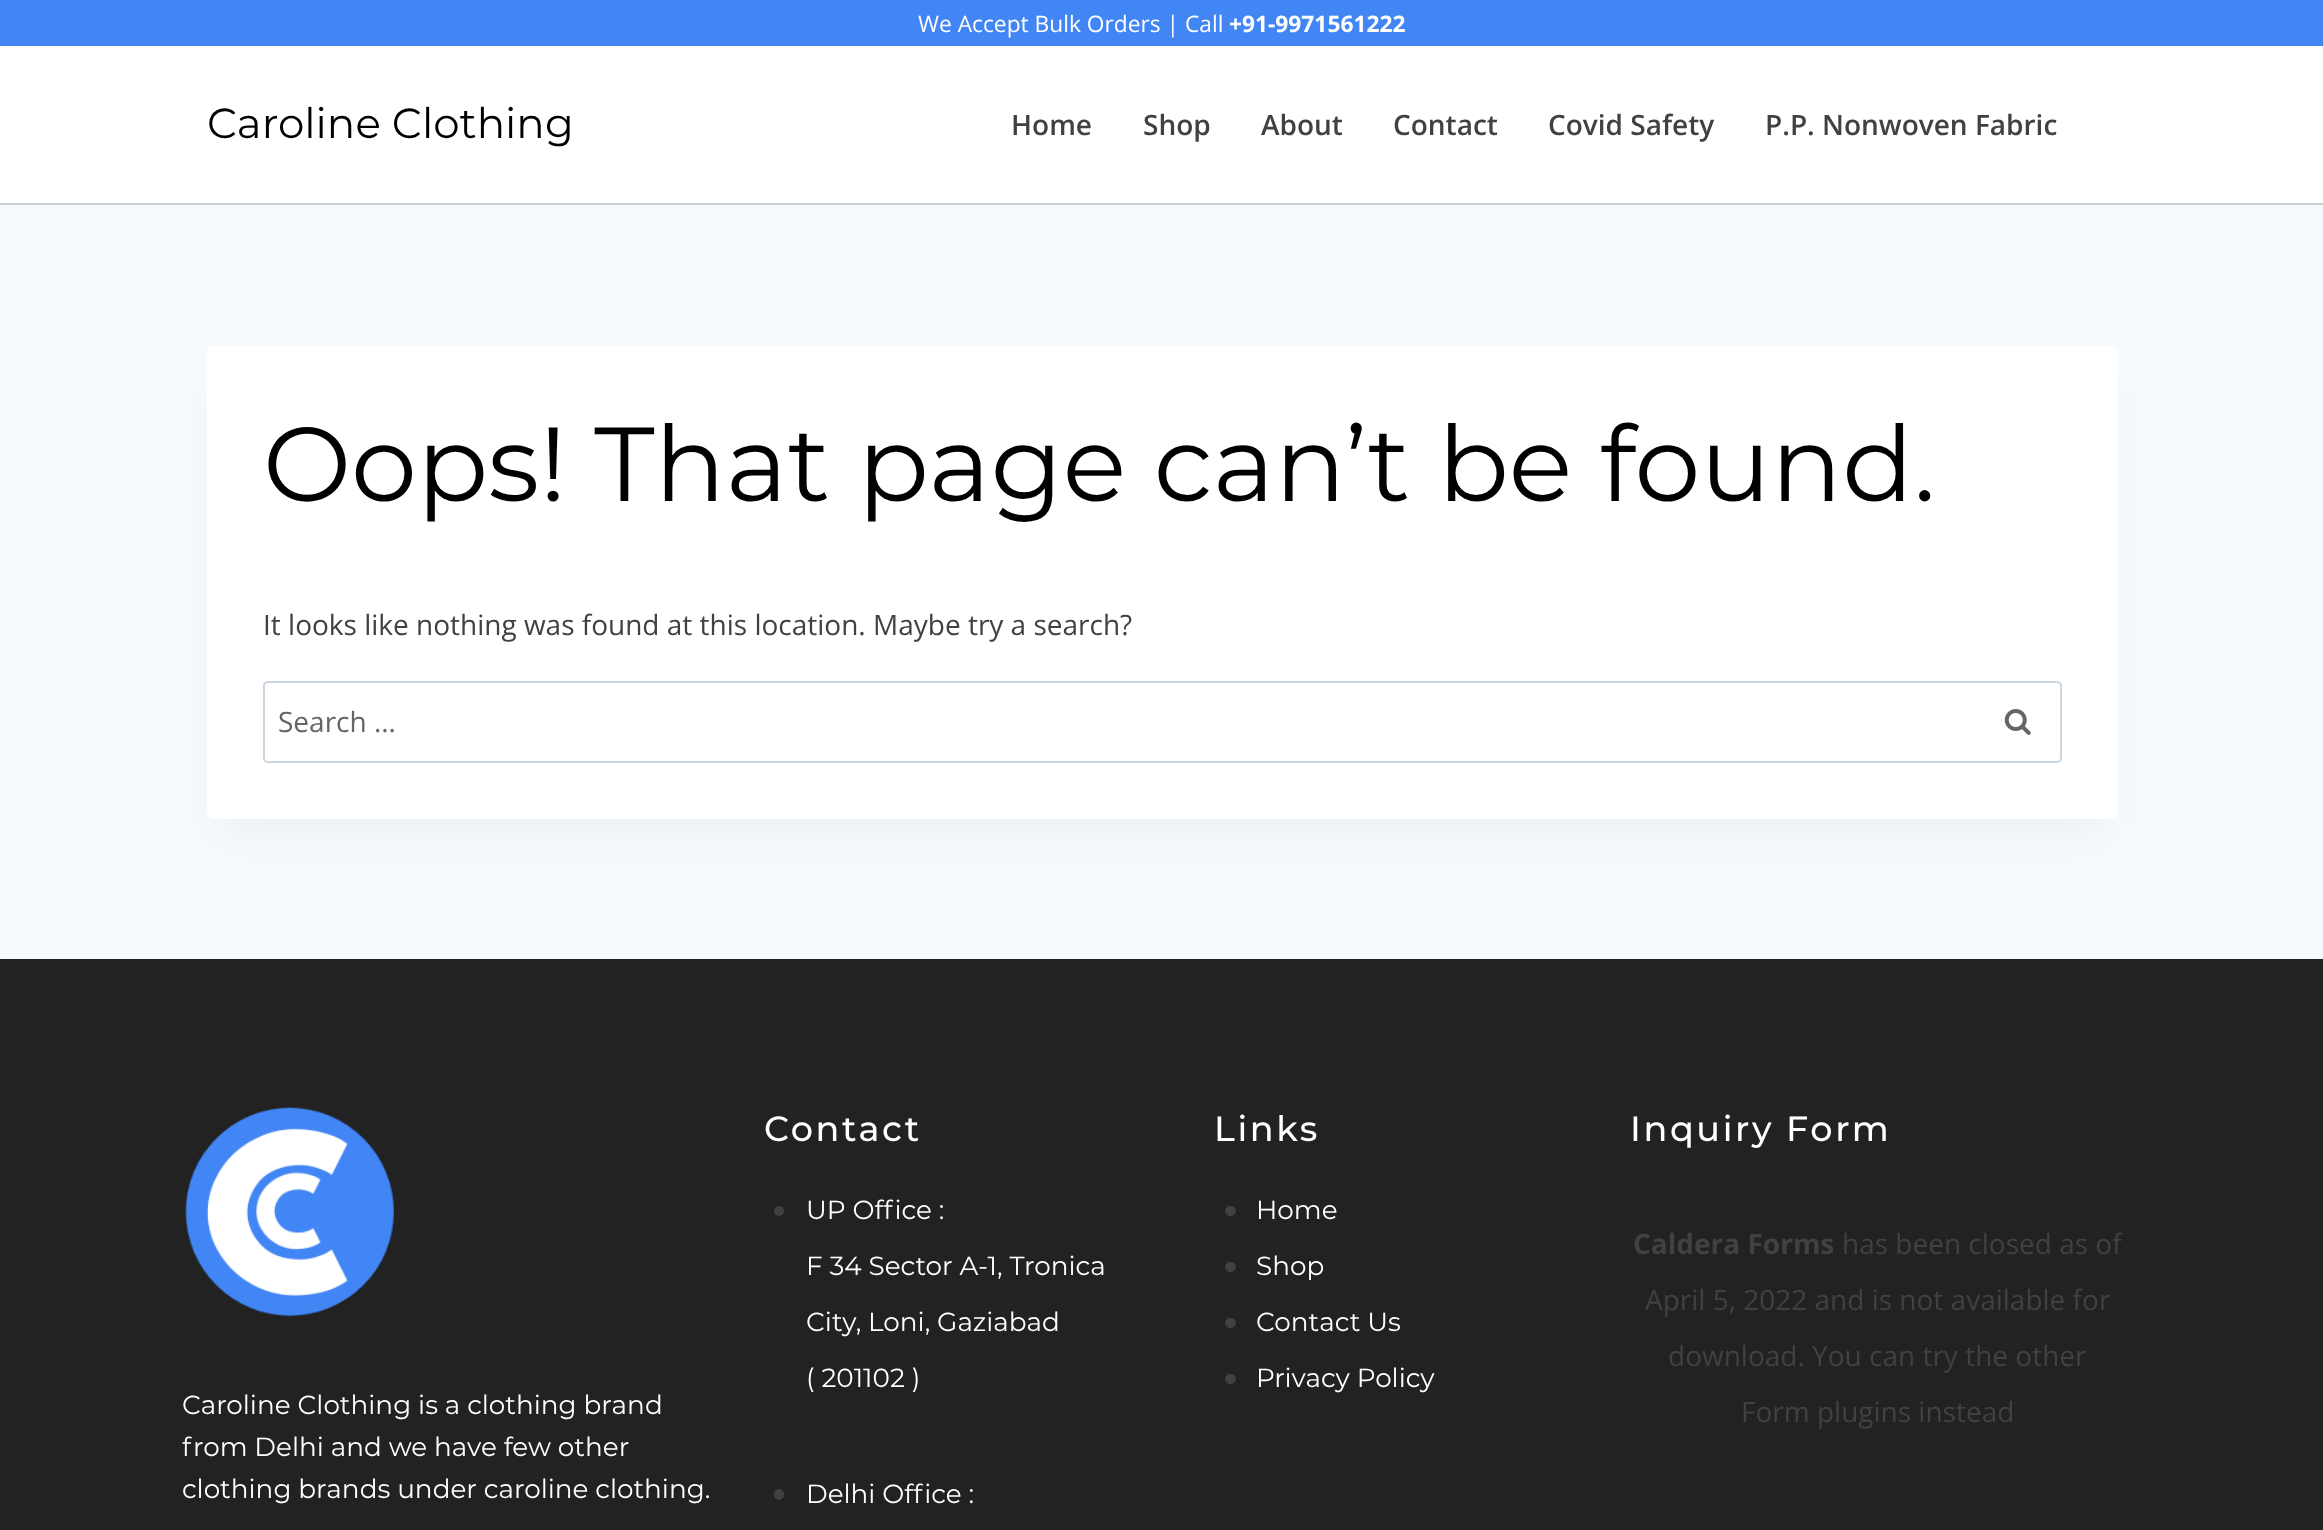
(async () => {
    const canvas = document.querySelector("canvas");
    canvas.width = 2323;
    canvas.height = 1530;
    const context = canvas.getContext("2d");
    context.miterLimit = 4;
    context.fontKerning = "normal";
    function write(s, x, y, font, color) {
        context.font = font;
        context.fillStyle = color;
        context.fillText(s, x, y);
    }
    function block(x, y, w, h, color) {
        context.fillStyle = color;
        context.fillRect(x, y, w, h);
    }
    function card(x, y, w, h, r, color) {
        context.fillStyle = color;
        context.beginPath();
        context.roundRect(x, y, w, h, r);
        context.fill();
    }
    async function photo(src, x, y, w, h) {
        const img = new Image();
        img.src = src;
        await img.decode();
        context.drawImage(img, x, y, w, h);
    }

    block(0, 0, 2323, 1530, "rgb(247, 250, 252)");
    block(0, 46, 2323, 157, "rgb(255, 255, 255)");
    block(0, 0, 2323, 46, "rgb(66, 133, 244)");
    write("We Accept Bulk Orders | Call", 918, 32, "22.75px Open Sans", "rgb(255, 255, 255)");
    write("+91-9971561222", 1229, 32, "bold 22.75px Open Sans", "rgb(255, 255, 255)");
    block(0, 203, 2323, 2, "rgb(203, 207, 211)");
    write("Caroline Clothing", 207, 138, "42px Montserrat", "rgb(0, 0, 0)");
    write("Home", 1011, 135, "600 28px Open Sans", "rgb(65, 65, 65)");
    write("Shop", 1143, 135, "600 28px Open Sans", "rgb(65, 65, 65)");
    write("About", 1261, 135, "600 28px Open Sans", "rgb(65, 65, 65)");
    write("Contact", 1393, 135, "600 28px Open Sans", "rgb(65, 65, 65)");
    write("Covid Safety", 1548, 135, "600 28px Open Sans", "rgb(65, 65, 65)");
    write("P.P. Nonwoven Fabric", 1765, 135, "600 28px Open Sans", "rgb(65, 65, 65)");
    context.fillStyle = "rgba(0, 0, 0, 0.05)";
    context.filter = "blur(22px)";
    context.beginPath();
    context.rect(224, 389, 1876, 439);
    context.fill();
    context.filter = "none";
    card(207, 345, 1911, 474, 7, "rgb(255, 255, 255)");
    write("Oops! That page can’t be found.", 263, 501, "105px Montserrat", "rgb(0, 0, 0)");
    write("It looks like nothing was found at this location. Maybe try a search?", 263, 635, "28px Open Sans", "rgb(65, 65, 65)");
    context.beginPath();
    context.roundRect(264, 682, 1797, 80, 4);
    context.strokeStyle = "rgb(203, 213, 224)";
    context.lineWidth = 2;
    context.stroke();
    write("Search …", 278, 732, "28px Open Sans", "rgb(101, 101, 101)");
    await photo("media/1.png", 2004, 709, 27, 26);
    block(0, 959, 2323, 571, "rgb(34, 34, 34)");
    await photo("media/2.png", 185, 1107, 209, 210);
    write("Caroline Clothing is a clothing brand", 182, 1414, "26.25px Montserrat", "rgb(255, 255, 255)");
    write("from Delhi and we have few other", 182, 1456, "26.25px Montserrat", "rgb(255, 255, 255)");
    write("clothing brands under caroline clothing.", 182, 1498, "26.25px Montserrat", "rgb(255, 255, 255)");
    context.letterSpacing = "2.6px";
    write("Contact", 764, 1141, "500 35px Montserrat", "rgb(255, 255, 255)");
    context.fillStyle = "rgb(65, 65, 65)";
    context.beginPath();
    context.arc(779, 1211, 5, 0, Math.PI * 2);
    context.fill();
    context.letterSpacing = "0px";
    write("UP Office :", 806, 1219, "26.25px Montserrat", "rgb(255, 255, 255)");
    write("F 34 Sector A-1, Tronica", 806, 1275, "26.25px Montserrat", "rgb(255, 255, 255)");
    write("City, Loni, Gaziabad", 806, 1331, "26.25px Montserrat", "rgb(255, 255, 255)");
    write("( 201102 )", 806, 1387, "26.25px Montserrat", "rgb(255, 255, 255)");
    card(774, 1489, 10, 11, 5, "rgb(65, 65, 65)");
    write("Delhi Office :", 806, 1503, "26.25px Montserrat", "rgb(255, 255, 255)");
    context.letterSpacing = "2.6px";
    write("Links", 1214, 1141, "500 35px Montserrat", "rgb(255, 255, 255)");
    card(1225, 1206, 11, 10, 5, "rgb(65, 65, 65)");
    context.letterSpacing = "0px";
    write("Home", 1256, 1219, "26.25px Montserrat", "rgb(255, 255, 255)");
    card(1225, 1262, 11, 10, 5, "rgb(65, 65, 65)");
    write("Shop", 1256, 1275, "26.25px Montserrat", "rgb(255, 255, 255)");
    card(1225, 1318, 11, 10, 5, "rgb(65, 65, 65)");
    write("Contact Us", 1256, 1331, "26.25px Montserrat", "rgb(255, 255, 255)");
    card(1225, 1374, 11, 10, 5, "rgb(65, 65, 65)");
    write("Privacy Policy", 1256, 1387, "26.25px Montserrat", "rgb(255, 255, 255)");
    context.letterSpacing = "2.6px";
    write("Inquiry Form", 1630, 1141, "500 35px Montserrat", "rgb(255, 255, 255)");
    context.letterSpacing = "0px";
    write("Caldera Forms", 1633, 1254, "bold 28px Open Sans", "rgb(65, 65, 65)");
    write("has been closed as of", 1842, 1254, "28px Open Sans", "rgb(65, 65, 65)");
    write("April 5, 2022 and is not available for", 1645, 1310, "28px Open Sans", "rgb(65, 65, 65)");
    write("download. You can try the other", 1668, 1366, "28px Open Sans", "rgb(65, 65, 65)");
    write("Form plugins instead", 1741, 1422, "28px Open Sans", "rgb(65, 65, 65)");
})();
